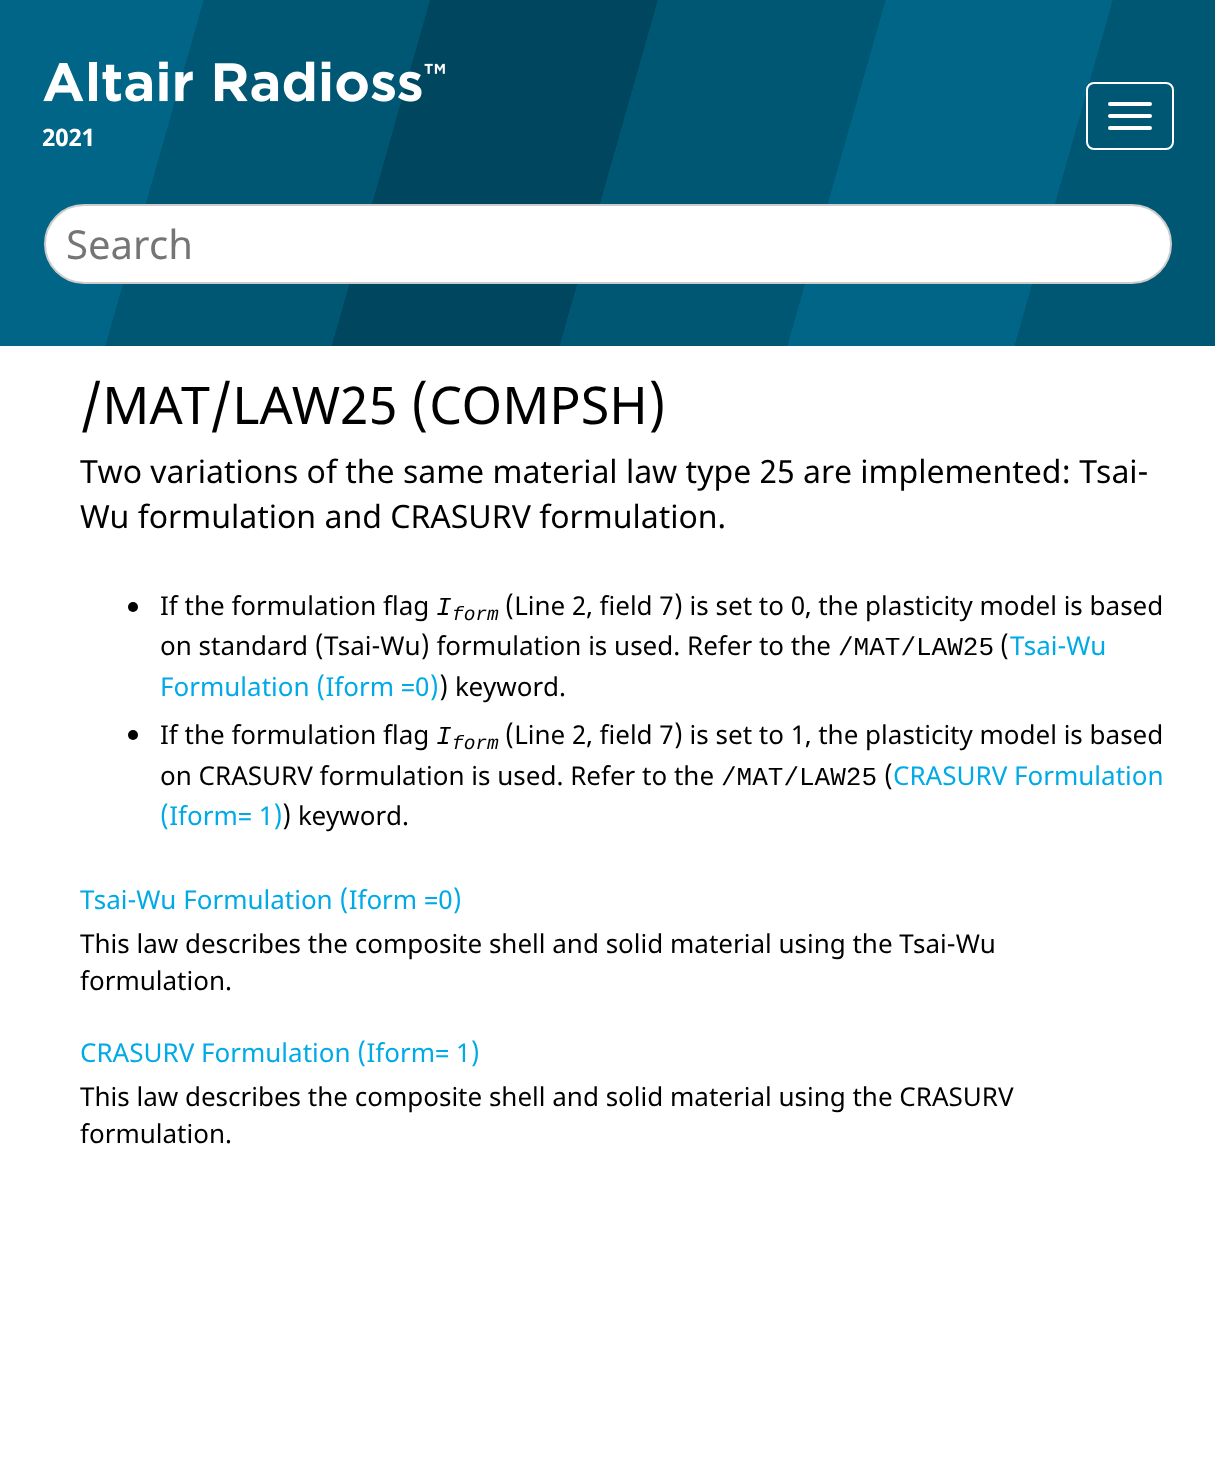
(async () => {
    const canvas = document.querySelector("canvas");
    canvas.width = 1215;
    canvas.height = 1482;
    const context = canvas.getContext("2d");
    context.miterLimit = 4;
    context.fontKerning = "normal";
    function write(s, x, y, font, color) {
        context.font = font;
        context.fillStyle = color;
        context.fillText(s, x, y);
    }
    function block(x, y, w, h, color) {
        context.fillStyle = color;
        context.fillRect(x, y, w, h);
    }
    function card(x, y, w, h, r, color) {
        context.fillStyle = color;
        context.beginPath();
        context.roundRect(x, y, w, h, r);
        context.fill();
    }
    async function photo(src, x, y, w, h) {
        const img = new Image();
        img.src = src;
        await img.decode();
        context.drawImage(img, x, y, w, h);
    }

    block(0, 0, 1215, 1482, "rgb(255, 255, 255)");
    await photo("media/1.png", 0, 0, 1215, 346);
    await photo("media/2.png", 43, 61, 402, 41);
    write("2021", 42, 146, "bold 24px Noto Sans", "rgb(255, 255, 255)");
    context.beginPath();
    context.roundRect(1087, 83, 86, 66, 7);
    context.strokeStyle = "rgb(255, 255, 255)";
    context.lineWidth = 2;
    context.stroke();
    card(1108, 102, 44, 4, 2, "rgb(255, 255, 255)");
    card(1108, 114, 44, 4, 2, "rgb(255, 255, 255)");
    card(1108, 126, 44, 4, 2, "rgb(255, 255, 255)");
    context.beginPath();
    context.roundRect(45, 205, 1126, 78, 39);
    context.fill();
    context.strokeStyle = "rgb(204, 204, 204)";
    context.stroke();
    write("Search", 66, 259, "40px Noto Sans", "rgb(117, 117, 117)");
    write("/MAT/LAW25 (COMPSH)", 80, 424, "52px Noto Sans", "rgb(0, 0, 0)");
    write("Two variations of the same material law type 25 are implemented: Tsai-", 80, 483, "32px Noto Sans", "rgb(0, 0, 0)");
    write("Wu formulation and CRASURV formulation.", 80, 528, "32px Noto Sans", "rgb(0, 0, 0)");
    context.beginPath();
    context.arc(133, 607, 5, 0, Math.PI * 2);
    context.fill();
    write("If the formulation flag", 160, 615, "26px Noto Sans", "rgb(0, 0, 0)");
    write("I", 436, 615, "italic 26px Liberation Mono", "rgb(0, 0, 0)");
    write("form", 452, 620, "italic 19.5px Liberation Mono", "rgb(0, 0, 0)");
    write("(Line 2, field 7) is set to 0, the plasticity model is based", 505, 615, "26px Noto Sans", "rgb(0, 0, 0)");
    write("on standard (Tsai-Wu) formulation is used. Refer to the", 160, 655, "26px Noto Sans", "rgb(0, 0, 0)");
    write("/MAT/LAW25", 838, 655, "26px Liberation Mono", "rgb(0, 0, 0)");
    write("(", 1000, 655, "26px Noto Sans", "rgb(0, 0, 0)");
    write("Tsai-Wu", 1010, 655, "26px Noto Sans", "rgb(0, 170, 230)");
    write("Formulation (Iform =0)", 160, 696, "26px Noto Sans", "rgb(0, 170, 230)");
    write(") keyword.", 439, 696, "26px Noto Sans", "rgb(0, 0, 0)");
    context.beginPath();
    context.arc(133, 735, 5, 0, Math.PI * 2);
    context.fill();
    write("If the formulation flag", 160, 744, "26px Noto Sans", "rgb(0, 0, 0)");
    write("I", 436, 744, "italic 26px Liberation Mono", "rgb(0, 0, 0)");
    write("form", 452, 749, "italic 19.5px Liberation Mono", "rgb(0, 0, 0)");
    write("(Line 2, field 7) is set to 1, the plasticity model is based", 505, 744, "26px Noto Sans", "rgb(0, 0, 0)");
    write("on CRASURV formulation is used. Refer to the", 160, 785, "26px Noto Sans", "rgb(0, 0, 0)");
    write("/MAT/LAW25", 721, 785, "26px Liberation Mono", "rgb(0, 0, 0)");
    write("(", 884, 785, "26px Noto Sans", "rgb(0, 0, 0)");
    write("CRASURV Formulation", 893, 785, "26px Noto Sans", "rgb(0, 170, 230)");
    write("(Iform= 1)", 160, 825, "26px Noto Sans", "rgb(0, 170, 230)");
    write(") keyword.", 282, 825, "26px Noto Sans", "rgb(0, 0, 0)");
    write("Tsai-Wu Formulation (Iform =0)", 80, 909, "26px Noto Sans", "rgb(0, 170, 230)");
    write("This law describes the composite shell and solid material using the Tsai-Wu", 80, 953, "26px Noto Sans", "rgb(0, 0, 0)");
    write("formulation.", 80, 990, "26px Noto Sans", "rgb(0, 0, 0)");
    write("CRASURV Formulation (Iform= 1)", 80, 1062, "26px Noto Sans", "rgb(0, 170, 230)");
    write("This law describes the composite shell and solid material using the CRASURV", 80, 1106, "26px Noto Sans", "rgb(0, 0, 0)");
    write("formulation.", 80, 1143, "26px Noto Sans", "rgb(0, 0, 0)");
})();
